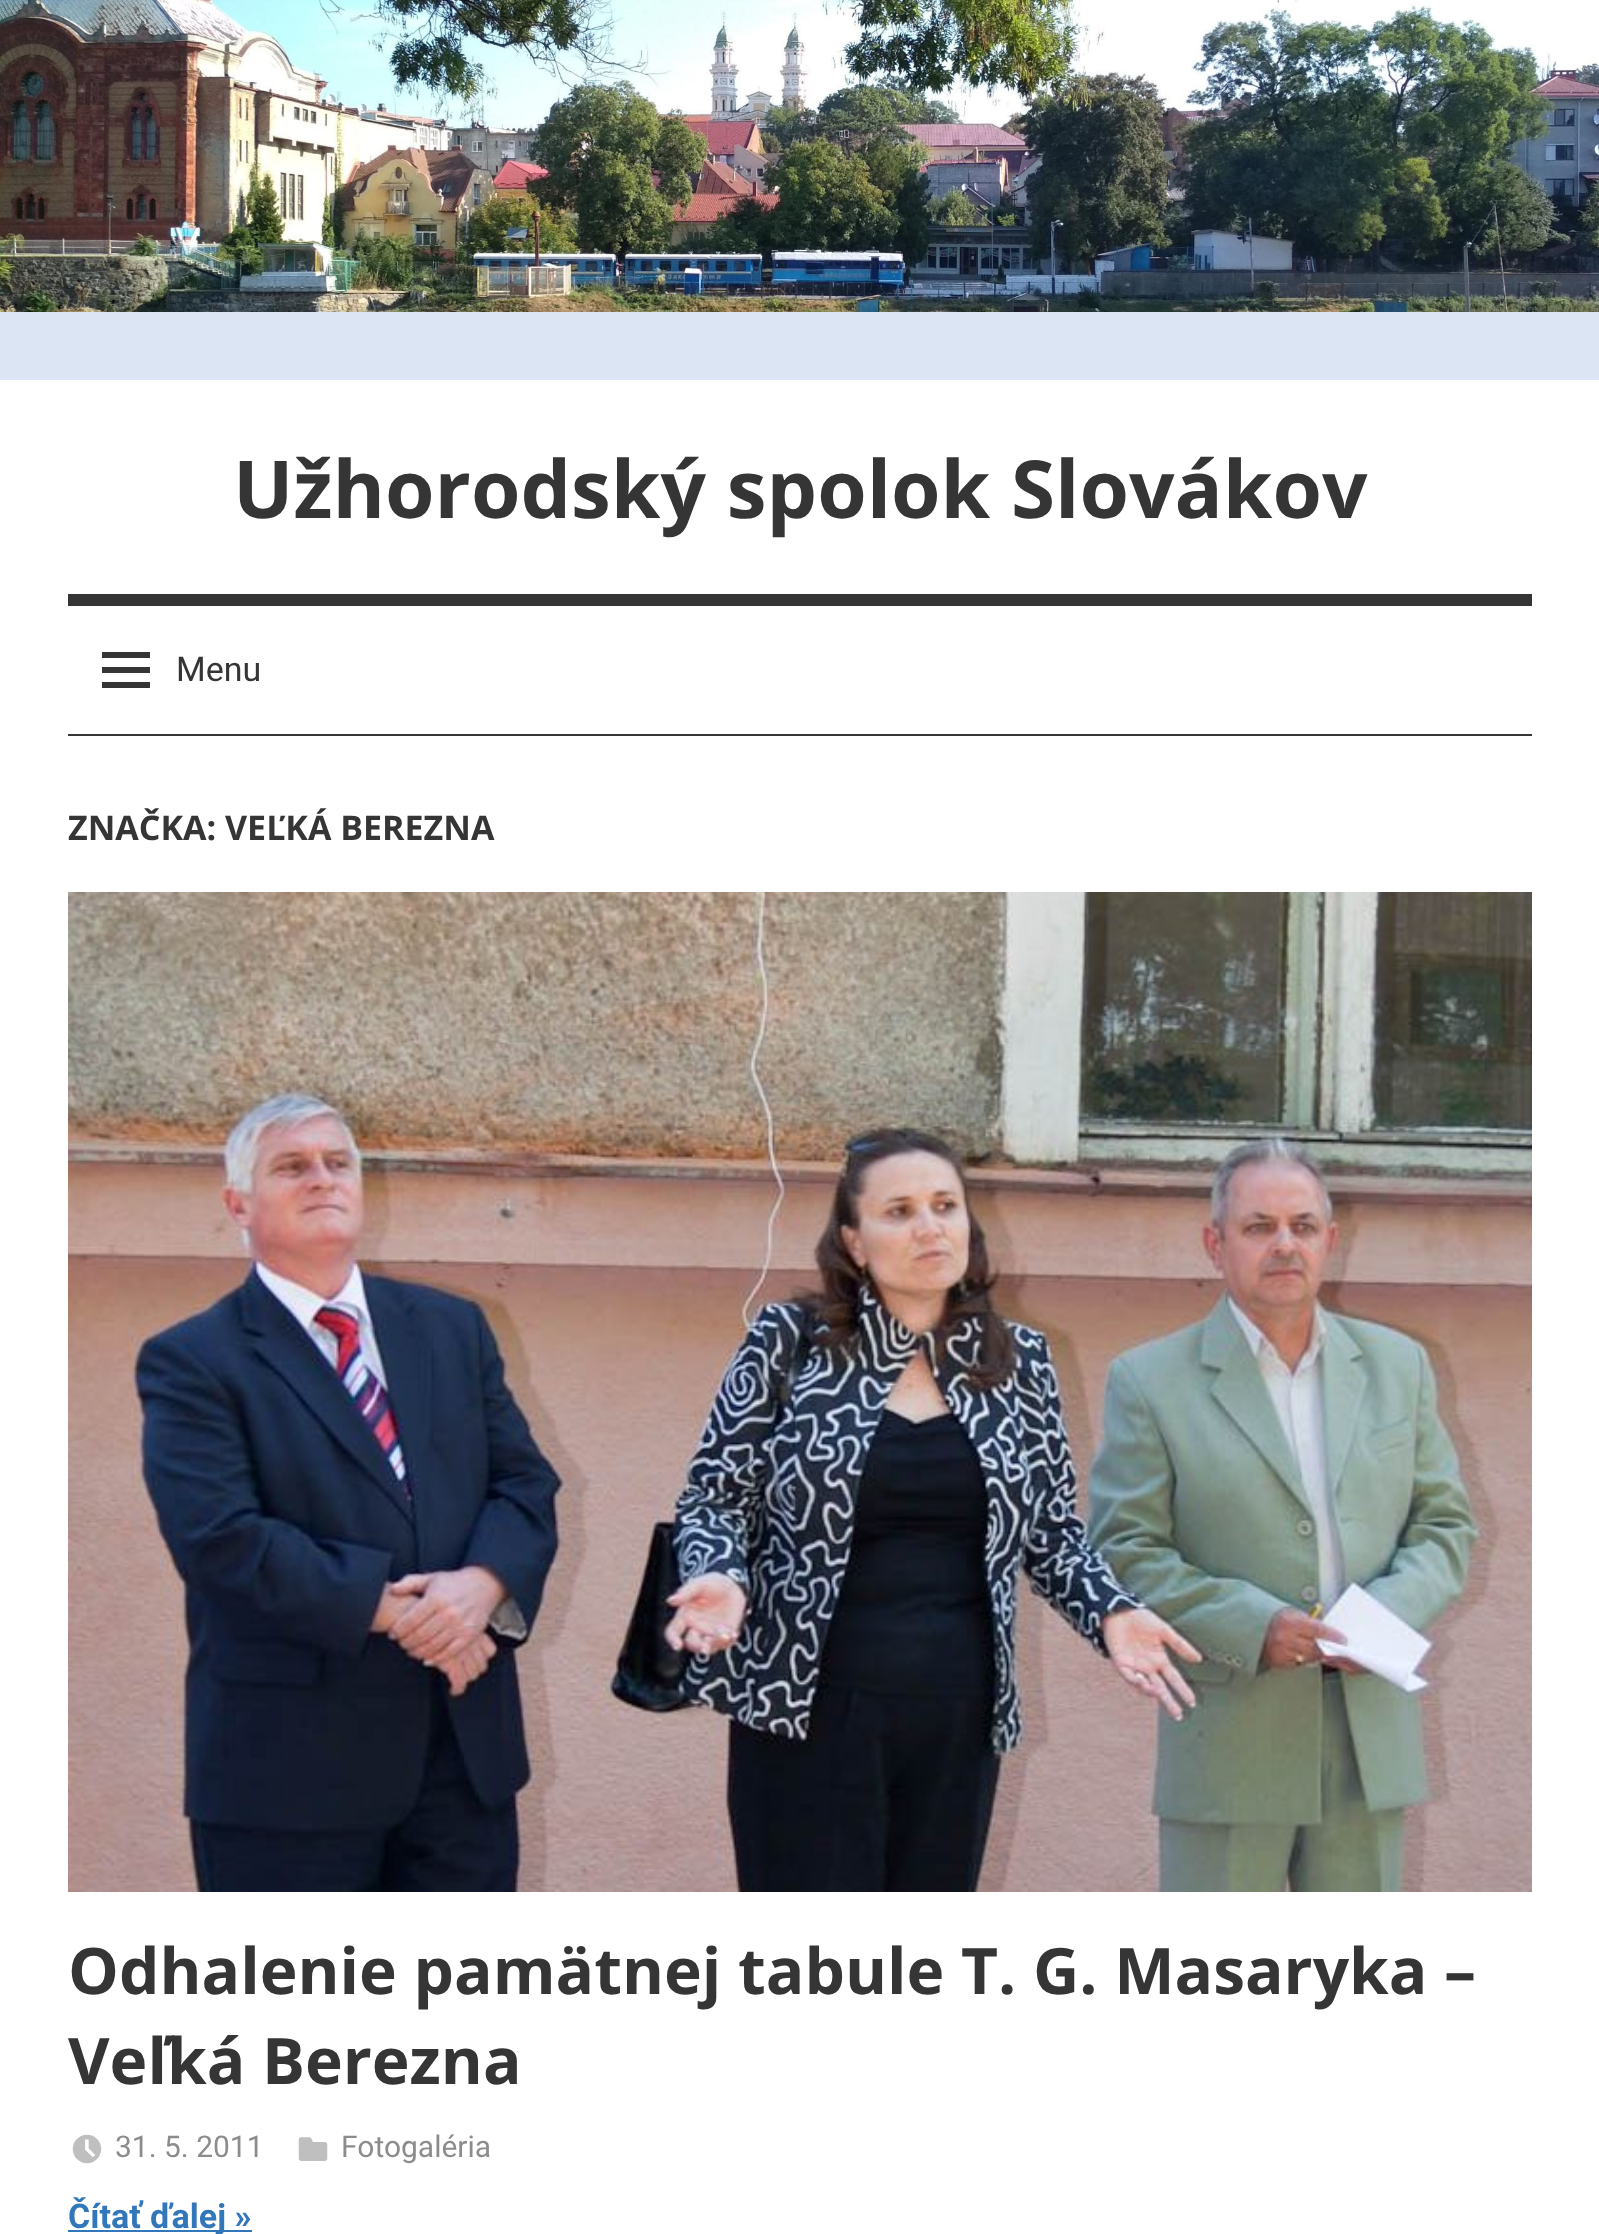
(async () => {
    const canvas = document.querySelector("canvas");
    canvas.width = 1599;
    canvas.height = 2234;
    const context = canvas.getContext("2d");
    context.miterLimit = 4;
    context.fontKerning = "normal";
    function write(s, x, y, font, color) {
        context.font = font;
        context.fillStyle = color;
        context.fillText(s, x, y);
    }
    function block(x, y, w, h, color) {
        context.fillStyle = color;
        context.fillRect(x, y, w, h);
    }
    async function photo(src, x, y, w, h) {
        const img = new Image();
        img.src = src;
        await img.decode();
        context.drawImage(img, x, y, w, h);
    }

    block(0, 0, 1599, 2234, "rgb(220, 229, 244)");
    await photo("media/1.png", 0, 0, 1599, 312);
    block(0, 380, 1599, 1854, "rgb(255, 255, 255)");
    write("Užhorodský spolok Slovákov", 233, 518, "bold 80px Open Sans", "rgb(53, 53, 53)");
    block(68, 594, 1464, 12, "rgb(53, 53, 53)");
    block(68, 734, 1464, 2, "rgb(53, 53, 53)");
    await photo("media/2.png", 102, 652, 48, 36);
    write("Menu", 176, 681, "34px Roboto", "rgb(53, 53, 53)");
    write("ZNAČKA: VEĽKÁ BEREZNA", 68, 840, "bold 34px Open Sans", "rgb(53, 53, 53)");
    await photo("media/3.png", 68, 892, 1464, 1000);
    write("Odhalenie pamätnej tabule T. G. Masaryka –", 68, 1994, "bold 64px Open Sans", "rgb(53, 53, 53)");
    write("Veľká Berezna", 68, 2084, "bold 64px Open Sans", "rgb(53, 53, 53)");
    await photo("media/4.png", 72, 2134, 30, 30);
    write("31. 5. 2011", 115, 2157, "30px Roboto", "rgb(140, 140, 140)");
    await photo("media/5.png", 298, 2137, 30, 24);
    write("Fotogaléria", 341, 2157, "30px Roboto", "rgb(140, 140, 140)");
    block(68, 2230, 184, 2, "rgb(51, 119, 187)");
    write("Čítať ďalej »", 68, 2228, "bold 34px Roboto", "rgb(51, 119, 187)");
})();
